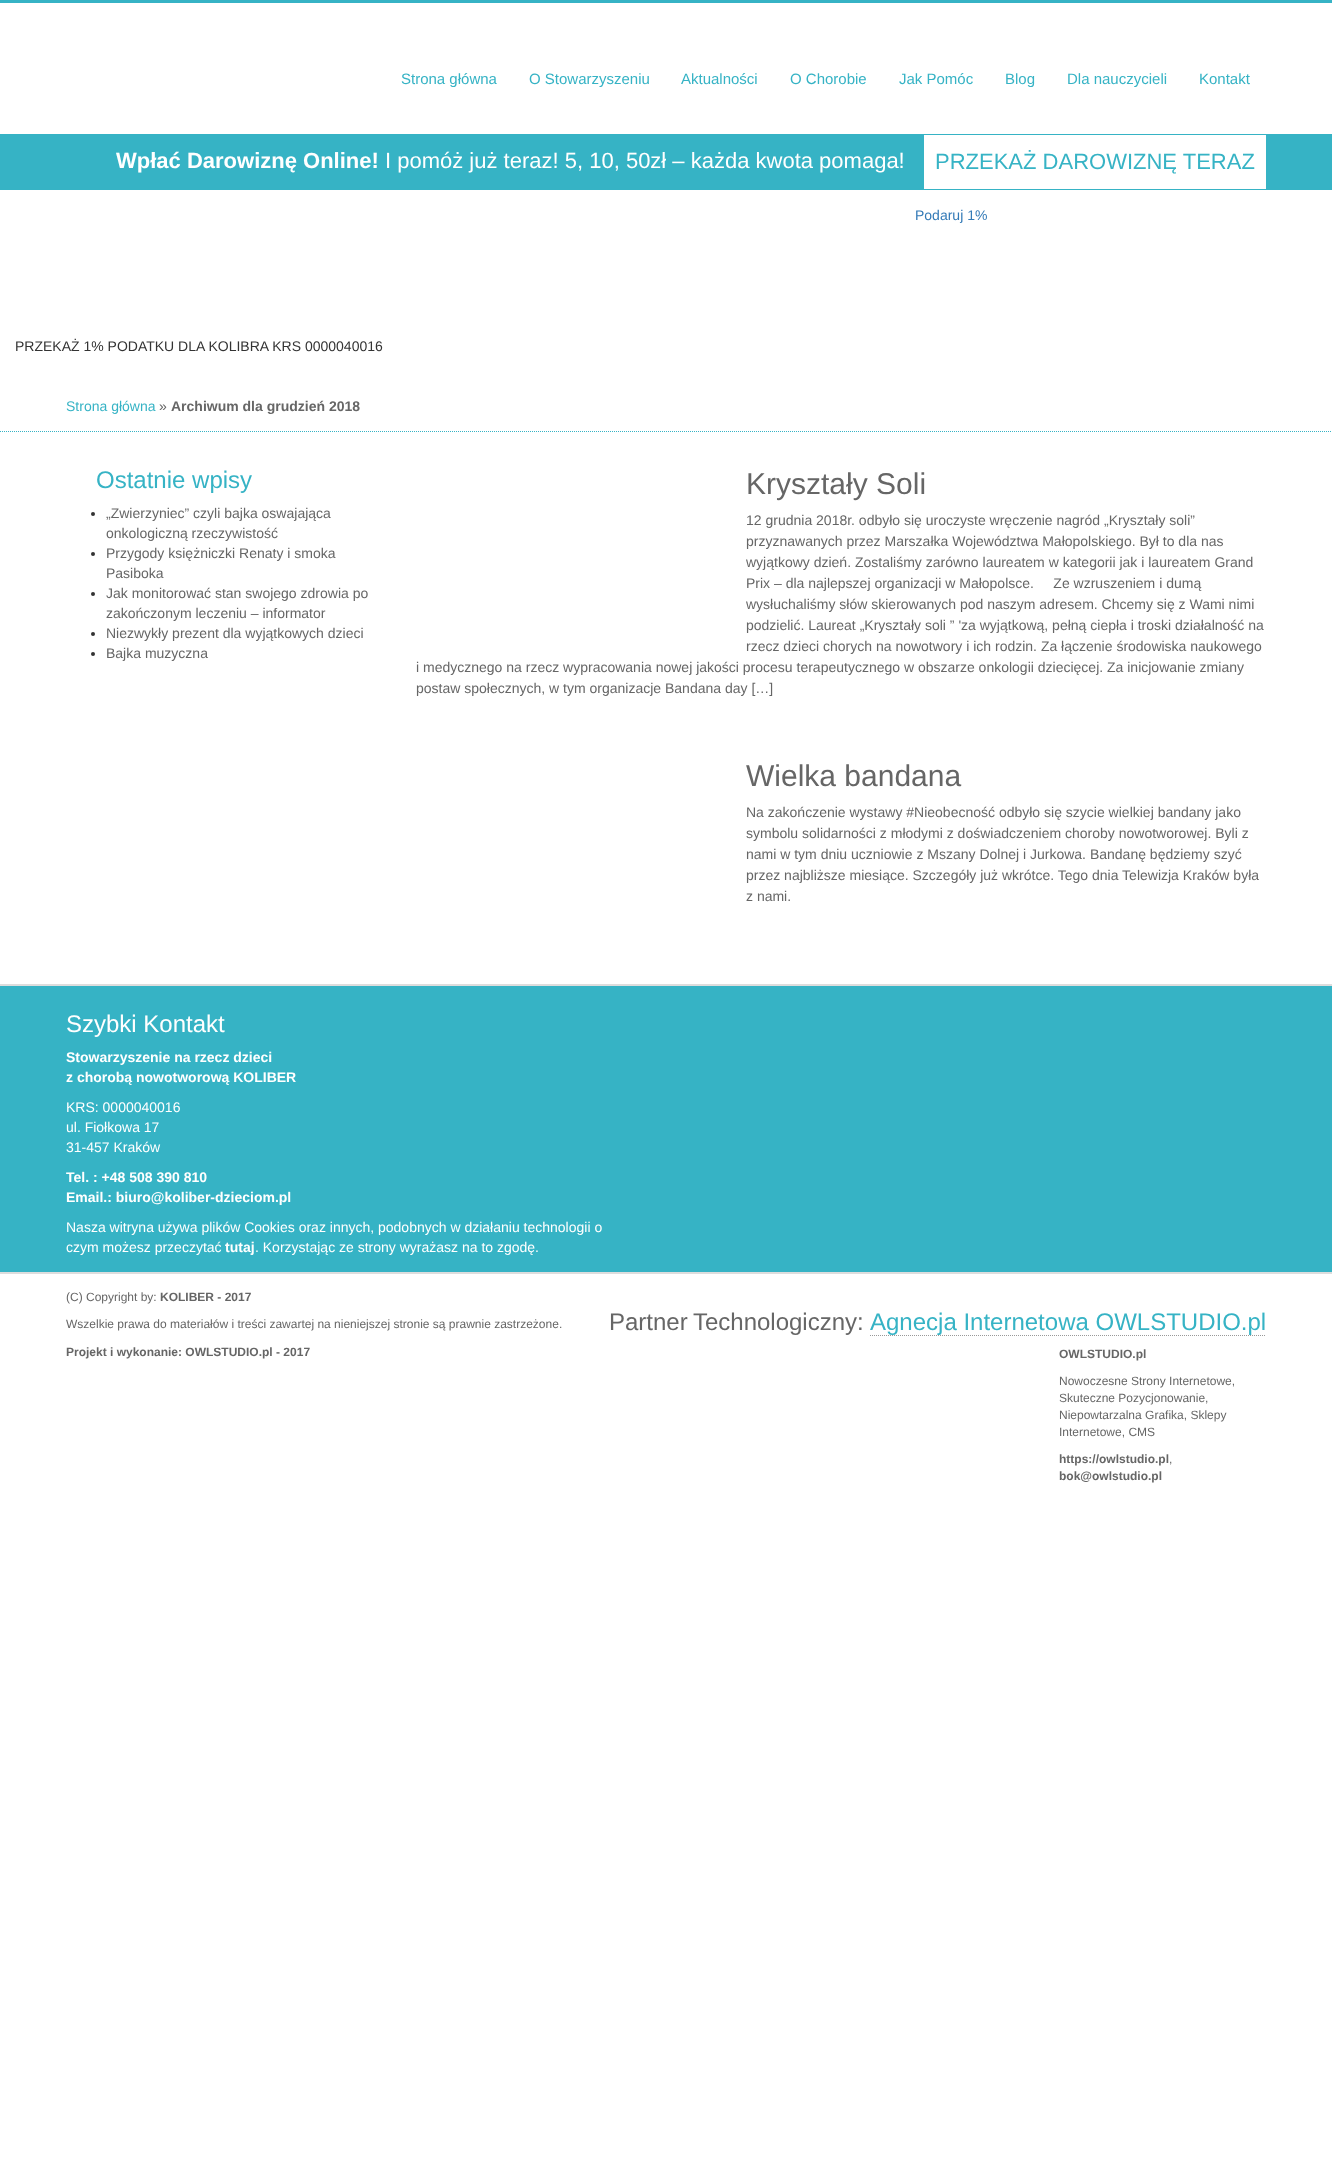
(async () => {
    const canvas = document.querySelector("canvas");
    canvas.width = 1332;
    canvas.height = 2170;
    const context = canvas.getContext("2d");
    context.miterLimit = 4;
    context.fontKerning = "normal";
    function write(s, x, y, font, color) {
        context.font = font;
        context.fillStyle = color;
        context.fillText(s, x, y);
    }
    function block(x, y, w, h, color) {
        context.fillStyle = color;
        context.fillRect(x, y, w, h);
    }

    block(0, 0, 1332, 2170, "rgb(255, 255, 255)");
    block(0, 0, 1332, 3, "rgb(54, 179, 197)");
    write("Strona główna", 401, 84, "15px Liberation Sans", "rgb(54, 179, 197)");
    write("O Stowarzyszeniu", 529, 84, "15px Liberation Sans", "rgb(54, 179, 197)");
    write("Aktualności", 681, 84, "15px Liberation Sans", "rgb(54, 179, 197)");
    write("O Chorobie", 790, 84, "15px Liberation Sans", "rgb(54, 179, 197)");
    write("Jak Pomóc", 899, 84, "15px Liberation Sans", "rgb(54, 179, 197)");
    write("Blog", 1005, 84, "15px Liberation Sans", "rgb(54, 179, 197)");
    write("Dla nauczycieli", 1067, 84, "15px Liberation Sans", "rgb(54, 179, 197)");
    write("Kontakt", 1199, 84, "15px Liberation Sans", "rgb(54, 179, 197)");
    block(0, 134, 1332, 56, "rgb(54, 179, 197)");
    write("Wpłać Darowiznę Online!", 116, 168, "bold 22px Liberation Sans", "rgb(255, 255, 255)");
    write("I pomóż już teraz! 5, 10, 50zł – każda kwota pomaga!", 385, 168, "22px Liberation Sans", "rgb(255, 255, 255)");
    block(924, 135, 342, 54, "rgb(255, 255, 255)");
    write("PRZEKAŻ DAROWIZNĘ TERAZ", 935, 169, "22px Liberation Sans", "rgb(54, 179, 197)");
    write("Podaruj 1%", 915, 220, "14px Liberation Sans", "rgb(51, 122, 183)");
    write("PRZEKAŻ 1% PODATKU DLA KOLIBRA KRS 0000040016", 15, 351, "14px Liberation Sans", "rgb(51, 51, 51)");
    context.beginPath();
    context.moveTo(0, 431.5);
    context.lineTo(1332, 431.5);
    context.strokeStyle = "rgb(54, 179, 197)";
    context.setLineDash([1, 1]);
    context.stroke();
    write("Strona główna", 66, 411, "14px Liberation Sans", "rgb(54, 179, 197)");
    write("»", 159, 411, "14px Liberation Sans", "rgb(102, 102, 102)");
    write("Archiwum dla grudzień 2018", 171, 411, "bold 14px Liberation Sans", "rgb(102, 102, 102)");
    write("Ostatnie wpisy", 96, 488, "24px Liberation Sans", "rgb(54, 179, 197)");
    context.fillStyle = "rgb(51, 51, 51)";
    context.beginPath();
    context.arc(93, 514, 2, 0, Math.PI * 2);
    context.fill();
    write("„Zwierzyniec” czyli bajka oswajająca", 106, 518, "14px Liberation Sans", "rgb(102, 102, 102)");
    write("onkologiczną rzeczywistość", 106, 538, "14px Liberation Sans", "rgb(102, 102, 102)");
    context.fillStyle = "rgb(51, 51, 51)";
    context.beginPath();
    context.arc(93, 554, 2, 0, Math.PI * 2);
    context.fill();
    write("Przygody księżniczki Renaty i smoka", 106, 558, "14px Liberation Sans", "rgb(102, 102, 102)");
    write("Pasiboka", 106, 578, "14px Liberation Sans", "rgb(102, 102, 102)");
    context.fillStyle = "rgb(51, 51, 51)";
    context.beginPath();
    context.arc(93, 594, 2, 0, Math.PI * 2);
    context.fill();
    write("Jak monitorować stan swojego zdrowia po", 106, 598, "14px Liberation Sans", "rgb(102, 102, 102)");
    write("zakończonym leczeniu – informator", 106, 618, "14px Liberation Sans", "rgb(102, 102, 102)");
    context.fillStyle = "rgb(51, 51, 51)";
    context.beginPath();
    context.arc(93, 634, 2, 0, Math.PI * 2);
    context.fill();
    write("Niezwykły prezent dla wyjątkowych dzieci", 106, 638, "14px Liberation Sans", "rgb(102, 102, 102)");
    context.fillStyle = "rgb(51, 51, 51)";
    context.beginPath();
    context.arc(93, 654, 2, 0, Math.PI * 2);
    context.fill();
    write("Bajka muzyczna", 106, 658, "14px Liberation Sans", "rgb(102, 102, 102)");
    write("Kryształy Soli", 746, 494, "30px Liberation Sans", "rgb(102, 102, 102)");
    write("12 grudnia 2018r. odbyło się uroczyste wręczenie nagród „Kryształy soli”", 746, 525, "14px Liberation Sans", "rgb(102, 102, 102)");
    write("przyznawanych przez Marszałka Województwa Małopolskiego. Był to dla nas", 746, 546, "14px Liberation Sans", "rgb(102, 102, 102)");
    write("wyjątkowy dzień. Zostaliśmy zarówno laureatem w kategorii jak i laureatem Grand", 746, 567, "14px Liberation Sans", "rgb(102, 102, 102)");
    write("Prix – dla najlepszej organizacji w Małopolsce.     Ze wzruszeniem i dumą", 746, 588, "14px Liberation Sans", "rgb(102, 102, 102)");
    write("wysłuchaliśmy słów skierowanych pod naszym adresem. Chcemy się z Wami nimi", 746, 609, "14px Liberation Sans", "rgb(102, 102, 102)");
    write("podzielić. Laureat „Kryształy soli ” 'za wyjątkową, pełną ciepła i troski działalność na", 746, 630, "14px Liberation Sans", "rgb(102, 102, 102)");
    write("rzecz dzieci chorych na nowotwory i ich rodzin. Za łączenie środowiska naukowego", 746, 651, "14px Liberation Sans", "rgb(102, 102, 102)");
    write("i medycznego na rzecz wypracowania nowej jakości procesu terapeutycznego w obszarze onkologii dziecięcej. Za inicjowanie zmiany", 416, 672, "14px Liberation Sans", "rgb(102, 102, 102)");
    write("postaw społecznych, w tym organizacje Bandana day […]", 416, 693, "14px Liberation Sans", "rgb(102, 102, 102)");
    write("Wielka bandana", 746, 786, "30px Liberation Sans", "rgb(102, 102, 102)");
    write("Na zakończenie wystawy #Nieobecność odbyło się szycie wielkiej bandany jako", 746, 817, "14px Liberation Sans", "rgb(102, 102, 102)");
    write("symbolu solidarności z młodymi z doświadczeniem choroby nowotworowej. Byli z", 746, 838, "14px Liberation Sans", "rgb(102, 102, 102)");
    write("nami w tym dniu uczniowie z Mszany Dolnej i Jurkowa. Bandanę będziemy szyć", 746, 859, "14px Liberation Sans", "rgb(102, 102, 102)");
    write("przez najbliższe miesiące. Szczegóły już wkrótce. Tego dnia Telewizja Kraków była", 746, 880, "14px Liberation Sans", "rgb(102, 102, 102)");
    write("z nami.", 746, 901, "14px Liberation Sans", "rgb(102, 102, 102)");
    block(0, 986, 1332, 286, "rgb(54, 179, 197)");
    block(0, 984, 1332, 2, "rgb(221, 221, 221)");
    block(0, 1272, 1332, 2, "rgb(221, 221, 221)");
    write("Szybki Kontakt", 66, 1032, "24px Liberation Sans", "rgb(255, 255, 255)");
    write("Stowarzyszenie na rzecz dzieci", 66, 1062, "bold 14px Liberation Sans", "rgb(255, 255, 255)");
    write("z chorobą nowotworową KOLIBER", 66, 1082, "bold 14px Liberation Sans", "rgb(255, 255, 255)");
    write("KRS: 0000040016", 66, 1112, "14px Liberation Sans", "rgb(255, 255, 255)");
    write("ul. Fiołkowa 17", 66, 1132, "14px Liberation Sans", "rgb(255, 255, 255)");
    write("31-457 Kraków", 66, 1152, "14px Liberation Sans", "rgb(255, 255, 255)");
    write("Tel. : +48 508 390 810", 66, 1182, "bold 14px Liberation Sans", "rgb(255, 255, 255)");
    write("Email.: biuro@koliber-dzieciom.pl", 66, 1202, "bold 14px Liberation Sans", "rgb(255, 255, 255)");
    write("Nasza witryna używa plików Cookies oraz innych, podobnych w działaniu technologii o", 66, 1232, "14px Liberation Sans", "rgb(255, 255, 255)");
    write("czym możesz przeczytać", 66, 1252, "14px Liberation Sans", "rgb(255, 255, 255)");
    write("tutaj", 225, 1252, "bold 14px Liberation Sans", "rgb(255, 255, 255)");
    write(". Korzystając ze strony wyrażasz na to zgodę.", 255, 1252, "14px Liberation Sans", "rgb(255, 255, 255)");
    write("(C) Copyright by:", 66, 1301, "12px Liberation Sans", "rgb(102, 102, 102)");
    write("KOLIBER - 2017", 160, 1301, "bold 12px Liberation Sans", "rgb(102, 102, 102)");
    write("Wszelkie prawa do materiałów i treści zawartej na nieniejszej stronie są prawnie zastrzeżone.", 66, 1328, "12px Liberation Sans", "rgb(102, 102, 102)");
    write("Projekt i wykonanie: OWLSTUDIO.pl - 2017", 66, 1356, "bold 12px Liberation Sans", "rgb(102, 102, 102)");
    context.wordSpacing = "-1px";
    write("Partner Technologiczny:", 609, 1330, "24px Liberation Sans", "rgb(102, 102, 102)");
    context.wordSpacing = "0px";
    write("Agnecja Internetowa OWLSTUDIO.pl", 870, 1330, "24px Liberation Sans", "rgb(54, 179, 197)");
    context.beginPath();
    context.moveTo(870, 1335.5);
    context.lineTo(1266, 1335.5);
    context.strokeStyle = "rgb(153, 153, 153)";
    context.stroke();
    write("OWLSTUDIO.pl", 1059, 1358, "bold 12px Liberation Sans", "rgb(102, 102, 102)");
    write("Nowoczesne Strony Internetowe,", 1059, 1385, "12px Liberation Sans", "rgb(102, 102, 102)");
    write("Skuteczne Pozycjonowanie,", 1059, 1402, "12px Liberation Sans", "rgb(102, 102, 102)");
    write("Niepowtarzalna Grafika, Sklepy", 1059, 1419, "12px Liberation Sans", "rgb(102, 102, 102)");
    write("Internetowe, CMS", 1059, 1436, "12px Liberation Sans", "rgb(102, 102, 102)");
    write("https://owlstudio.pl", 1059, 1463, "bold 12px Liberation Sans", "rgb(102, 102, 102)");
    write(",", 1169, 1463, "12px Liberation Sans", "rgb(102, 102, 102)");
    write("bok@owlstudio.pl", 1059, 1480, "bold 12px Liberation Sans", "rgb(102, 102, 102)");
})();
